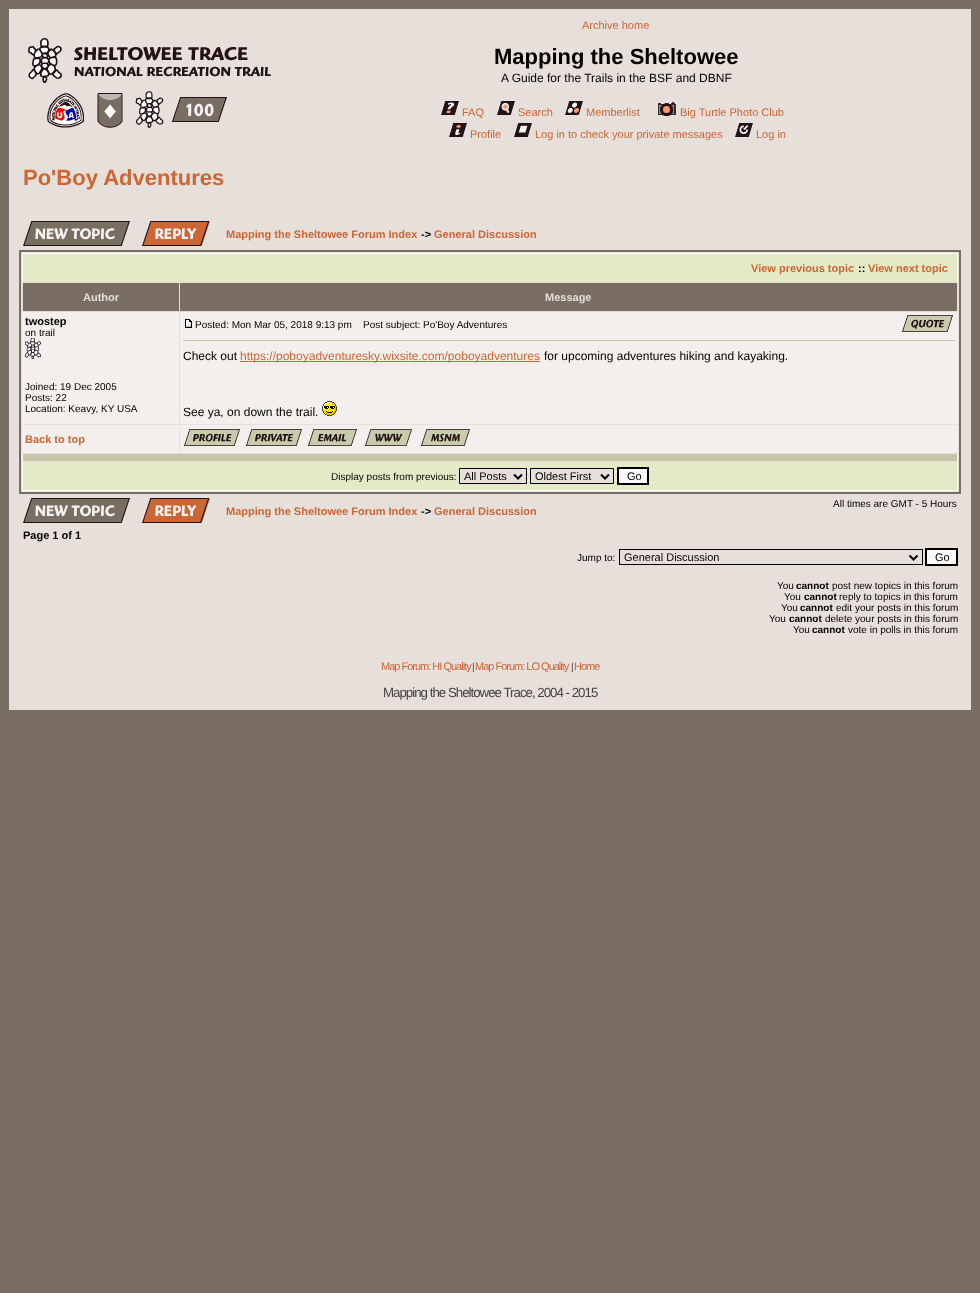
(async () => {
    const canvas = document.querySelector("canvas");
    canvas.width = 980;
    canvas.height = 1293;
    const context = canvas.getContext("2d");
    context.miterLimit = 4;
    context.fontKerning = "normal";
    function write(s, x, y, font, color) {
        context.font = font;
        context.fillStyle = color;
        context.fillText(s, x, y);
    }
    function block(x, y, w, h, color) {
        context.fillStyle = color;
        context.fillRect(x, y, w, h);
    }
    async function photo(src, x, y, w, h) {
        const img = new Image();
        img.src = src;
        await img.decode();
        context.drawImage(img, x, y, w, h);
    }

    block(0, 0, 980, 1293, "rgb(122, 110, 98)");
    block(9, 9, 962, 701, "rgb(230, 223, 218)");
    await photo("media/1.png", 28, 38, 243, 90);
    write("Archive home", 582, 29, "11px Liberation Sans", "rgb(204, 102, 53)");
    write("Mapping the Sheltowee", 494, 64, "bold 22px Liberation Sans", "rgb(0, 0, 0)");
    write("A Guide for the Trails in the BSF and DBNF", 501, 82, "12px Liberation Sans", "rgb(0, 0, 0)");
    await photo("media/2.png", 441, 101, 18, 14);
    write("FAQ", 462, 116, "11px Liberation Sans", "rgb(204, 102, 53)");
    await photo("media/3.png", 497, 101, 18, 14);
    write("Search", 518, 116, "11px Liberation Sans", "rgb(204, 102, 53)");
    await photo("media/4.png", 565, 101, 18, 14);
    write("Memberlist", 586, 116, "11px Liberation Sans", "rgb(204, 102, 53)");
    await photo("media/5.png", 658, 102, 18, 14);
    write("Big Turtle Photo Club", 680, 116, "11px Liberation Sans", "rgb(204, 102, 53)");
    await photo("media/6.png", 449, 123, 18, 14);
    write("Profile", 470, 138, "11px Liberation Sans", "rgb(204, 102, 53)");
    await photo("media/7.png", 514, 123, 18, 14);
    write("Log in to check your private messages", 535, 138, "11px Liberation Sans", "rgb(204, 102, 53)");
    await photo("media/8.png", 735, 123, 18, 14);
    write("Log in", 756, 138, "11px Liberation Sans", "rgb(204, 102, 53)");
    write("Po'Boy Adventures", 23, 185, "bold 22px Liberation Sans", "rgb(204, 102, 53)");
    await photo("media/9.png", 23, 221, 107, 25);
    await photo("media/10.png", 142, 221, 68, 25);
    write("Mapping the Sheltowee Forum Index", 226, 238, "bold 11px Liberation Sans", "rgb(204, 102, 53)");
    write("->", 421, 238, "bold 11px Liberation Sans", "rgb(0, 0, 0)");
    write("General Discussion", 434, 238, "bold 11px Liberation Sans", "rgb(204, 102, 53)");
    context.strokeStyle = "rgb(122, 110, 98)";
    context.lineWidth = 2;
    context.strokeRect(20, 251, 940, 242);
    block(23, 254, 934, 28, "rgb(228, 234, 197)");
    block(22, 253, 936, 1, "rgb(255, 255, 255)");
    block(957, 253, 1, 29, "rgb(255, 255, 255)");
    block(22, 253, 1, 29, "rgb(255, 255, 255)");
    write("View previous topic", 751, 272, "bold 11px Liberation Sans", "rgb(204, 102, 53)");
    write("::", 858, 272, "bold 11px Liberation Sans", "rgb(0, 0, 0)");
    write("View next topic", 868, 272, "bold 11px Liberation Sans", "rgb(204, 102, 53)");
    block(23, 283, 156, 28, "rgb(122, 110, 98)");
    write("Author", 83, 301, "bold 11px Liberation Sans", "rgb(230, 223, 218)");
    block(180, 283, 777, 28, "rgb(122, 110, 98)");
    write("Message", 545, 301, "bold 11px Liberation Sans", "rgb(230, 223, 218)");
    block(22, 312, 157, 112, "rgb(242, 239, 236)");
    write("twostep", 25, 325, "bold 11px Liberation Sans", "rgb(0, 0, 0)");
    write("on trail", 25, 336, "10px Liberation Sans", "rgb(0, 0, 0)");
    await photo("media/11.png", 25, 338, 16, 21);
    write("Joined: 19 Dec 2005", 25, 390, "10px Liberation Sans", "rgb(0, 0, 0)");
    write("Posts: 22", 25, 401, "10px Liberation Sans", "rgb(0, 0, 0)");
    write("Location: Keavy, KY USA", 25, 412, "10px Liberation Sans", "rgb(0, 0, 0)");
    block(180, 312, 778, 112, "rgb(242, 239, 236)");
    await photo("media/12.png", 185, 319, 7, 9);
    write("Posted: Mon Mar 05, 2018 9:13 pm", 195, 328, "10px Liberation Sans", "rgb(0, 0, 0)");
    write("Post subject: Po'Boy Adventures", 363, 328, "10px Liberation Sans", "rgb(0, 0, 0)");
    await photo("media/13.png", 902, 315, 51, 17);
    block(183, 340, 772, 1, "rgb(197, 198, 168)");
    write("Check out", 183, 360, "12px Liberation Sans", "rgb(0, 0, 0)");
    block(240, 361, 300, 1, "rgb(204, 102, 53)");
    write("https://poboyadventuresky.wixsite.com/poboyadventures", 240, 360, "12px Liberation Sans", "rgb(204, 102, 53)");
    write("for upcoming adventures hiking and kayaking.", 544, 360, "12px Liberation Sans", "rgb(0, 0, 0)");
    write("See ya, on down the trail.", 183, 416, "12px Liberation Sans", "rgb(0, 0, 0)");
    await photo("media/14.png", 322, 401, 15, 15);
    block(22, 425, 157, 28, "rgb(242, 239, 236)");
    write("Back to top", 25, 443, "bold 11px Liberation Sans", "rgb(204, 102, 53)");
    block(180, 425, 778, 28, "rgb(242, 239, 236)");
    await photo("media/15.png", 184, 429, 56, 17);
    await photo("media/16.png", 246, 429, 56, 17);
    await photo("media/17.png", 308, 429, 49, 17);
    await photo("media/18.png", 365, 429, 47, 17);
    await photo("media/19.png", 421, 429, 49, 17);
    block(23, 454, 934, 7, "rgb(197, 198, 168)");
    block(957, 454, 1, 7, "rgb(255, 255, 255)");
    block(22, 454, 1, 7, "rgb(255, 255, 255)");
    block(23, 462, 934, 28, "rgb(228, 234, 197)");
    block(957, 462, 1, 29, "rgb(255, 255, 255)");
    block(22, 490, 936, 1, "rgb(255, 255, 255)");
    block(22, 462, 1, 29, "rgb(255, 255, 255)");
    write("Display posts from previous:", 331, 480, "10px Liberation Sans", "rgb(0, 0, 0)");
    context.fillStyle = "rgb(230, 223, 218)";
    context.beginPath();
    context.rect(459.5, 468.5, 67, 15);
    context.fill();
    context.strokeStyle = "rgb(0, 0, 0)";
    context.lineWidth = 1;
    context.stroke();
    context.beginPath();
    context.moveTo(514, 474.5);
    context.lineTo(518, 478.5);
    context.lineTo(522, 474.5);
    context.lineWidth = 2;
    context.stroke();
    write("All Posts", 464, 480, "11px Liberation Sans", "rgb(0, 0, 0)");
    context.fillStyle = "rgb(230, 223, 218)";
    context.beginPath();
    context.rect(530.5, 468.5, 83, 15);
    context.fill();
    context.lineWidth = 1;
    context.stroke();
    context.beginPath();
    context.moveTo(601, 474.5);
    context.lineTo(605, 478.5);
    context.lineTo(609, 474.5);
    context.lineWidth = 2;
    context.stroke();
    write("Oldest First", 535, 480, "11px Liberation Sans", "rgb(0, 0, 0)");
    context.fillStyle = "rgb(250, 250, 250)";
    context.beginPath();
    context.rect(618, 468, 30, 16);
    context.fill();
    context.stroke();
    write("Go", 627, 480, "11px Liberation Sans", "rgb(0, 0, 0)");
    await photo("media/9.png", 23, 498, 107, 25);
    await photo("media/10.png", 142, 498, 68, 25);
    write("All times are GMT - 5 Hours", 833, 507, "10px Liberation Sans", "rgb(0, 0, 0)");
    write("Mapping the Sheltowee Forum Index", 226, 515, "bold 11px Liberation Sans", "rgb(204, 102, 53)");
    write("->", 421, 515, "bold 11px Liberation Sans", "rgb(0, 0, 0)");
    write("General Discussion", 434, 515, "bold 11px Liberation Sans", "rgb(204, 102, 53)");
    write("Page 1 of 1", 23, 539, "bold 11px Liberation Sans", "rgb(0, 0, 0)");
    write("Jump to:", 577, 561, "10px Liberation Sans", "rgb(0, 0, 0)");
    context.lineWidth = 1;
    context.strokeRect(619.5, 549.5, 303, 15);
    context.beginPath();
    context.moveTo(909.5, 555.5);
    context.lineTo(913.5, 559.5);
    context.lineTo(917.5, 555.5);
    context.lineWidth = 2;
    context.stroke();
    write("General Discussion", 624, 561, "11px Liberation Sans", "rgb(0, 0, 0)");
    context.fillStyle = "rgb(250, 250, 250)";
    context.beginPath();
    context.rect(926, 549, 31, 16);
    context.fill();
    context.stroke();
    write("Go", 935, 561, "11px Liberation Sans", "rgb(0, 0, 0)");
    write("You", 777, 589, "10px Liberation Sans", "rgb(0, 0, 0)");
    write("cannot", 796, 589, "bold 10px Liberation Sans", "rgb(0, 0, 0)");
    write("post new topics in this forum", 832, 589, "10px Liberation Sans", "rgb(0, 0, 0)");
    write("You", 784, 600, "10px Liberation Sans", "rgb(0, 0, 0)");
    write("cannot", 804, 600, "bold 10px Liberation Sans", "rgb(0, 0, 0)");
    write("reply to topics in this forum", 839, 600, "10px Liberation Sans", "rgb(0, 0, 0)");
    write("You", 781, 611, "10px Liberation Sans", "rgb(0, 0, 0)");
    write("cannot", 800, 611, "bold 10px Liberation Sans", "rgb(0, 0, 0)");
    write("edit your posts in this forum", 836, 611, "10px Liberation Sans", "rgb(0, 0, 0)");
    write("You", 769, 622, "10px Liberation Sans", "rgb(0, 0, 0)");
    write("cannot", 789, 622, "bold 10px Liberation Sans", "rgb(0, 0, 0)");
    write("delete your posts in this forum", 825, 622, "10px Liberation Sans", "rgb(0, 0, 0)");
    write("You", 793, 633, "10px Liberation Sans", "rgb(0, 0, 0)");
    write("cannot", 812, 633, "bold 10px Liberation Sans", "rgb(0, 0, 0)");
    write("vote in polls in this forum", 848, 633, "10px Liberation Sans", "rgb(0, 0, 0)");
    context.letterSpacing = "-1px";
    write("Map Forum: HI Quality", 381, 670, "11px Liberation Sans", "rgb(204, 102, 53)");
    write("|", 472, 670, "10px Liberation Sans", "rgb(68, 68, 68)");
    write("Map Forum: LO Quality", 475, 670, "11px Liberation Sans", "rgb(204, 102, 53)");
    write("|", 571, 670, "10px Liberation Sans", "rgb(68, 68, 68)");
    write("Home", 574, 670, "11px Liberation Sans", "rgb(204, 102, 53)");
    write("Mapping the Sheltowee Trace, 2004 - 2015", 383, 697, "13.3px Liberation Sans", "rgb(68, 68, 68)");
})();
